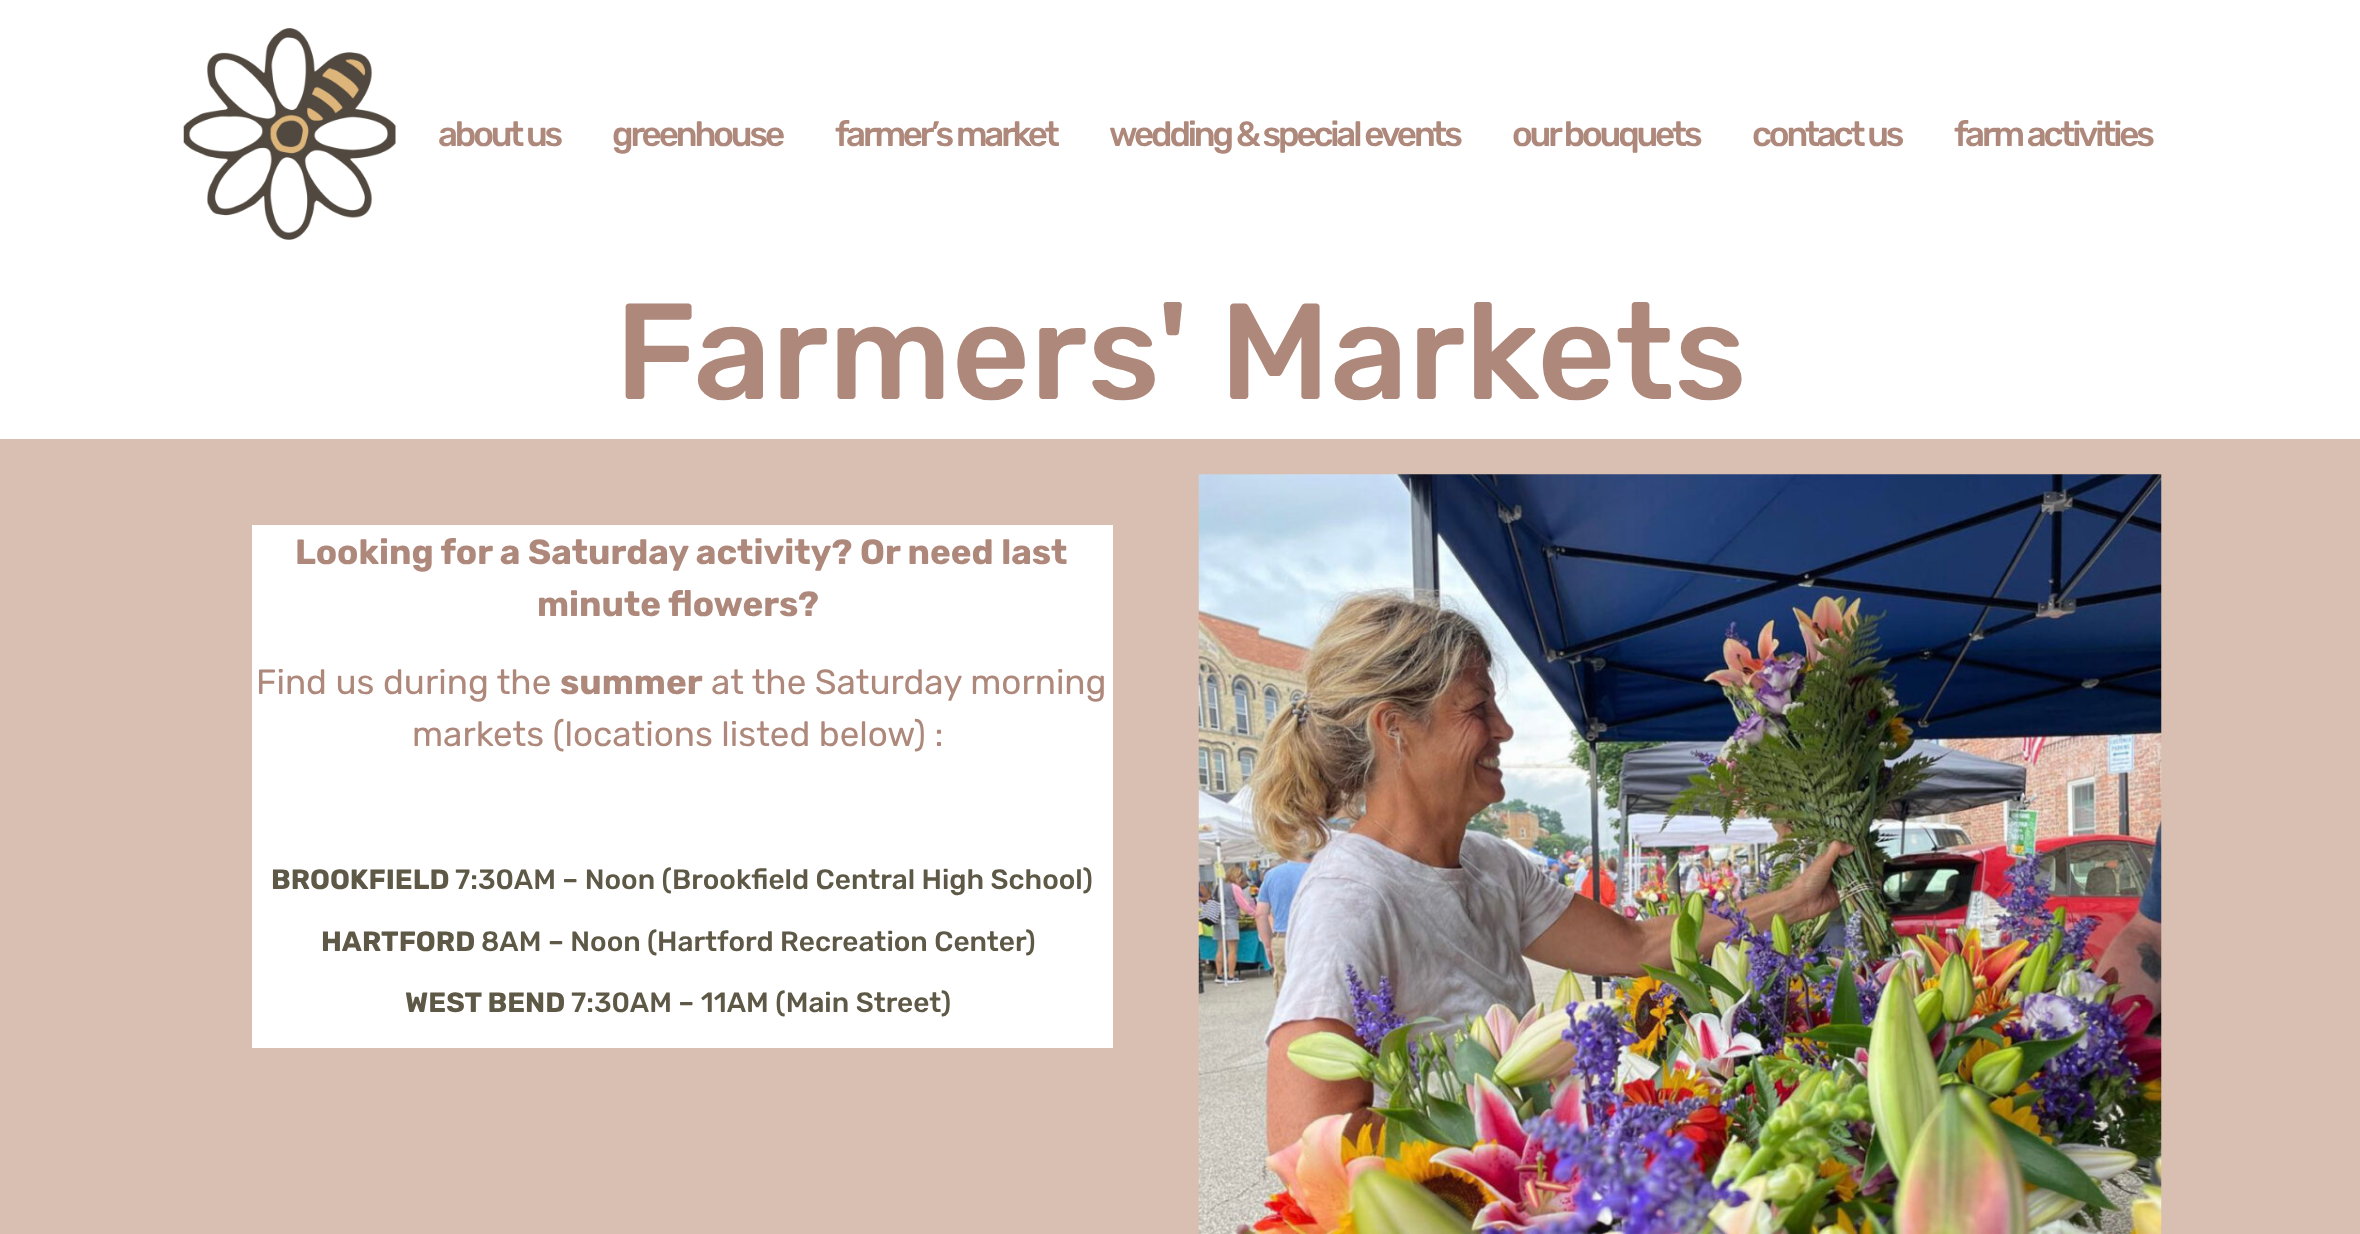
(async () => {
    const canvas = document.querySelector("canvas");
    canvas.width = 2360;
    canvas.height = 1234;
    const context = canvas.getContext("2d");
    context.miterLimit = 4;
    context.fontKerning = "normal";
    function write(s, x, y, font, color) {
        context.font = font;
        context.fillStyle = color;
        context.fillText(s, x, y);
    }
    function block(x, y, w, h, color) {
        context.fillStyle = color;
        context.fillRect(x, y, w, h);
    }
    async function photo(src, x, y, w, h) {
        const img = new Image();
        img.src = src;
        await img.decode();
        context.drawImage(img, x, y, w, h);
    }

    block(0, 0, 2360, 1234, "rgb(255, 255, 255)");
    await photo("media/1.png", 183, 28, 213, 212);
    context.letterSpacing = "-3.15px";
    write("about us", 438, 146, "500 35px Rubik", "rgb(174, 136, 123)");
    write("greenhouse", 612, 146, "500 35px Rubik", "rgb(174, 136, 123)");
    write("farmer’s market", 835, 146, "500 35px Rubik", "rgb(174, 136, 123)");
    write("wedding & special events", 1109, 146, "500 35px Rubik", "rgb(174, 136, 123)");
    write("our bouquets", 1512, 146, "500 35px Rubik", "rgb(174, 136, 123)");
    write("contact us", 1752, 146, "500 35px Rubik", "rgb(174, 136, 123)");
    write("farm activities", 1954, 146, "500 35px Rubik", "rgb(174, 136, 123)");
    context.letterSpacing = "0px";
    write("Farmers' Markets", 615, 399, "500 136.5px Rubik", "rgb(174, 136, 123)");
    block(0, 439, 2360, 795, "rgb(217, 191, 177)");
    block(252, 525, 861, 523, "rgb(255, 255, 255)");
    write("Looking for a Saturday activity? Or need last", 295, 564, "bold 35px Rubik", "rgb(174, 136, 123)");
    write("minute flowers?", 537, 616, "bold 35px Rubik", "rgb(174, 136, 123)");
    write("Find us during the", 256, 694, "35px Rubik", "rgb(174, 136, 123)");
    write("summer", 560, 694, "bold 35px Rubik", "rgb(174, 136, 123)");
    write("at the Saturday morning", 711, 694, "35px Rubik", "rgb(174, 136, 123)");
    write("markets (locations listed below) :", 412, 746, "35px Rubik", "rgb(174, 136, 123)");
    write("BROOKFIELD", 271, 889, "bold 28px Rubik", "rgb(94, 89, 70)");
    write("7:30AM – Noon (Brookfield Central High School)", 455, 889, "500 28px Rubik", "rgb(94, 89, 70)");
    write("HARTFORD", 321, 951, "bold 28px Rubik", "rgb(94, 89, 70)");
    write("8AM – Noon (", 481, 951, "500 28px Rubik", "rgb(94, 89, 70)");
    write("Hartford Recreation Center)", 657, 951, "500 28px Rubik", "rgb(94, 89, 70)");
    write("WEST BEND", 405, 1012, "bold 28px Rubik", "rgb(94, 89, 70)");
    write("7:30AM – 11AM (Main Street)", 571, 1012, "500 28px Rubik", "rgb(94, 89, 70)");
    await photo("media/2.png", 1198, 474, 964, 760);
})();
